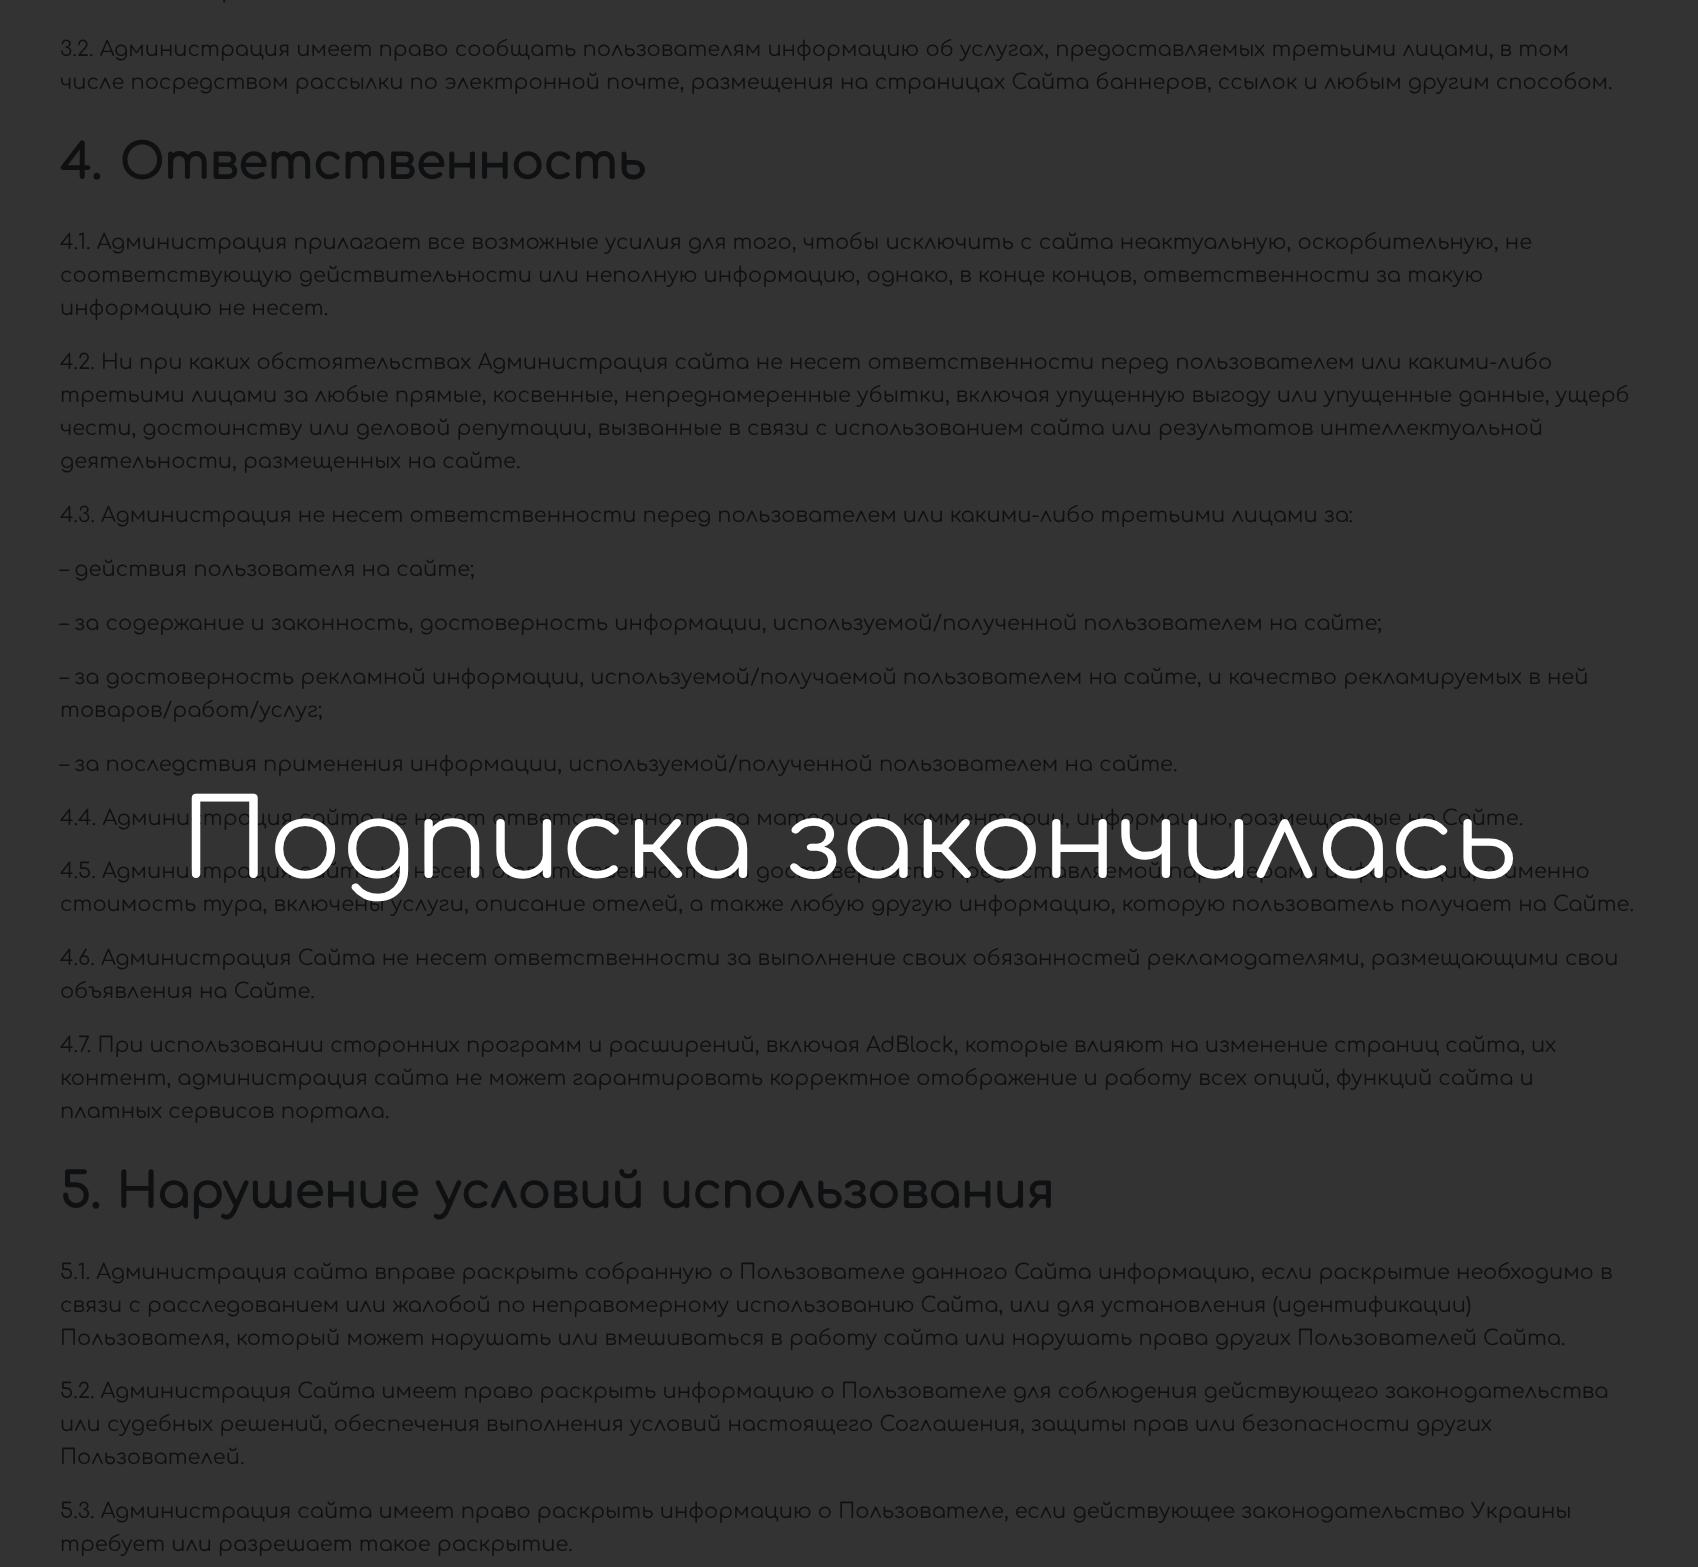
(async () => {
    const canvas = document.querySelector("canvas");
    canvas.width = 1698;
    canvas.height = 1567;
    const context = canvas.getContext("2d");
    context.miterLimit = 4;
    context.fontKerning = "normal";
    function write(s, x, y, font, color) {
        context.font = font;
        context.fillStyle = color;
        context.fillText(s, x, y);
    }
    function block(x, y, w, h, color) {
        context.fillStyle = color;
        context.fillRect(x, y, w, h);
    }

    block(0, 0, 1698, 1567, "rgb(51, 51, 51)");
    write(".", 222, 2, "21px Comfortaa", "rgb(14, 16, 17)");
    write("3.2. Администрация имеет право сообщать пользователям информацию об услугах, предоставляемых третьими лицами, в том", 60, 56, "21px Comfortaa", "rgb(14, 16, 17)");
    write("числе посредством рассылки по электронной почте, размещения на страницах Сайта баннеров, ссылок и любым другим способом.", 60, 89, "21px Comfortaa", "rgb(14, 16, 17)");
    context.wordSpacing = "4px";
    write("4. Ответственность", 60, 179, "bold 48px Comfortaa", "rgb(14, 16, 17)");
    context.wordSpacing = "0px";
    write("4.1. Администрация прилагает все возможные усилия для того, чтобы исключить с сайта неактуальную, оскорбительную, не", 60, 249, "21px Comfortaa", "rgb(14, 16, 17)");
    write("соответствующую действительности или неполную информацию, однако, в конце концов, ответственности за такую", 60, 282, "21px Comfortaa", "rgb(14, 16, 17)");
    write("информацию не несет.", 60, 315, "21px Comfortaa", "rgb(14, 16, 17)");
    write("4.2. Ни при каких обстоятельствах Администрация сайта не несет ответственности перед пользователем или какими-либо", 60, 369, "21px Comfortaa", "rgb(14, 16, 17)");
    write("третьими лицами за любые прямые, косвенные, непреднамеренные убытки, включая упущенную выгоду или упущенные данные, ущерб", 60, 402, "21px Comfortaa", "rgb(14, 16, 17)");
    write("чести, достоинству или деловой репутации, вызванные в связи с использованием сайта или результатов интеллектуальной", 60, 435, "21px Comfortaa", "rgb(14, 16, 17)");
    write("деятельности, размещенных на сайте.", 60, 468, "21px Comfortaa", "rgb(14, 16, 17)");
    write("4.3. Администрация не несет ответственности перед пользователем или какими-либо третьими лицами за:", 60, 522, "21px Comfortaa", "rgb(14, 16, 17)");
    write("– действия пользователя на сайте;", 60, 576, "21px Comfortaa", "rgb(14, 16, 17)");
    write("– за содержание и законность, достоверность информации, используемой/полученной пользователем на сайте;", 60, 630, "21px Comfortaa", "rgb(14, 16, 17)");
    write("– за достоверность рекламной информации, используемой/получаемой пользователем на сайте, и качество рекламируемых в ней", 60, 684, "21px Comfortaa", "rgb(14, 16, 17)");
    write("товаров/работ/услуг;", 60, 717, "21px Comfortaa", "rgb(14, 16, 17)");
    write("– за последствия применения информации, используемой/полученной пользователем на сайте.", 60, 771, "21px Comfortaa", "rgb(14, 16, 17)");
    write("4.4. Администрация сайта не несет ответственности за материалы, комментарии, информацию, размещаемые на Сайте.", 60, 825, "21px Comfortaa", "rgb(14, 16, 17)");
    write("4.5. Администрация сайта не несет ответственности за достоверность предоставляемой партнерами информации, а именно", 60, 878, "21px Comfortaa", "rgb(14, 16, 17)");
    write("стоимость тура, включены услуги, описание отелей, а также любую другую информацию, которую пользователь получает на Сайте.", 60, 911, "21px Comfortaa", "rgb(14, 16, 17)");
    write("4.6. Администрация Сайта не несет ответственности за выполнение своих обязанностей рекламодателями, размещающими свои", 60, 965, "21px Comfortaa", "rgb(14, 16, 17)");
    write("объявления на Сайте.", 60, 998, "21px Comfortaa", "rgb(14, 16, 17)");
    write("4.7. При использовании сторонних программ и расширений, включая AdBlock, которые влияют на изменение страниц сайта, их", 60, 1052, "21px Comfortaa", "rgb(14, 16, 17)");
    write("контент, администрация сайта не может гарантировать корректное отображение и работу всех опций, функций сайта и", 60, 1085, "21px Comfortaa", "rgb(14, 16, 17)");
    write("платных сервисов портала.", 60, 1118, "21px Comfortaa", "rgb(14, 16, 17)");
    context.wordSpacing = "2px";
    write("5. Нарушение условий использования", 60, 1208, "bold 48px Comfortaa", "rgb(14, 16, 17)");
    context.wordSpacing = "0px";
    write("5.1. Администрация сайта вправе раскрыть собранную о Пользователе данного Сайта информацию, если раскрытие необходимо в", 60, 1279, "21px Comfortaa", "rgb(14, 16, 17)");
    write("связи с расследованием или жалобой по неправомерному использованию Сайта, или для установления (идентификации)", 60, 1312, "21px Comfortaa", "rgb(14, 16, 17)");
    write("Пользователя, который может нарушать или вмешиваться в работу сайта или нарушать права других Пользователей Сайта.", 60, 1345, "21px Comfortaa", "rgb(14, 16, 17)");
    write("5.2. Администрация Сайта имеет право раскрыть информацию о Пользователе для соблюдения действующего законодательства", 60, 1398, "21px Comfortaa", "rgb(14, 16, 17)");
    write("или судебных решений, обеспечения выполнения условий настоящего Соглашения, защиты прав или безопасности других", 60, 1431, "21px Comfortaa", "rgb(14, 16, 17)");
    write("Пользователей.", 60, 1464, "21px Comfortaa", "rgb(14, 16, 17)");
    write("5.3. Администрация сайта имеет право раскрыть информацию о Пользователе, если действующее законодательство Украины", 60, 1518, "21px Comfortaa", "rgb(14, 16, 17)");
    write("требует или разрешает такое раскрытие.", 60, 1551, "21px Comfortaa", "rgb(14, 16, 17)");
    write("Подписка закончилась", 181, 878, "108px Comfortaa", "rgb(255, 255, 255)");
})();
